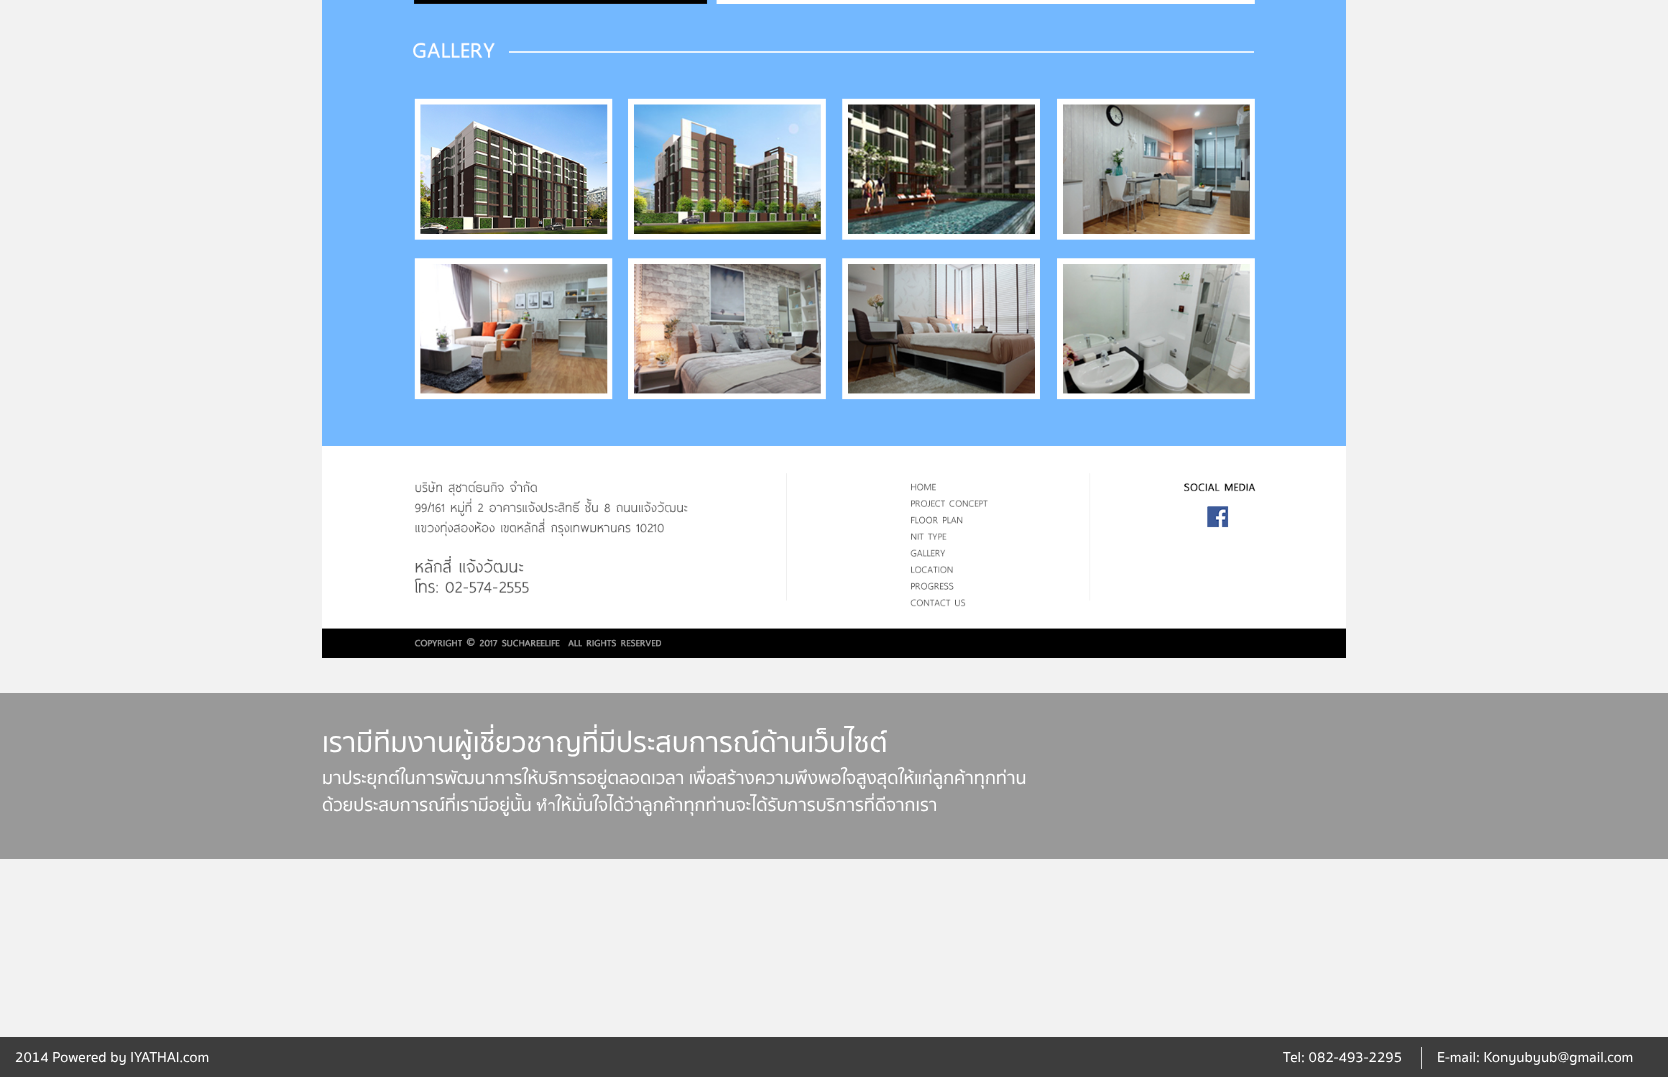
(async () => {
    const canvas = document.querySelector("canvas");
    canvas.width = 1668;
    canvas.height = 1077;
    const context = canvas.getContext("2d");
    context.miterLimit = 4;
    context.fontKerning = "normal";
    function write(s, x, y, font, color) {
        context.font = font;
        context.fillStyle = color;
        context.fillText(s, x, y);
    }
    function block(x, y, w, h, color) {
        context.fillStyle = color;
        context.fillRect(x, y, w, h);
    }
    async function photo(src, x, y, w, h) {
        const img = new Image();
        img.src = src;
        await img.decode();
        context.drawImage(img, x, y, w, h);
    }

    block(0, 0, 1668, 1077, "rgb(242, 242, 242)");
    await photo("media/1.png", 322, 0, 1024, 658);
    block(0, 693, 1668, 166, "rgb(153, 153, 153)");
    write("เรามีทีมงานผู้เชี่ยวชาญที่มีประสบการณ์ด้านเว็บไซต์", 322, 752, "500 25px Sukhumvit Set", "rgb(255, 255, 255)");
    write("มาประยุกต์ในการพัฒนาการให้บริการอยู่ตลอดเวลา เพื่อสร้างความพึงพอใจสูงสุดให้แก่ลูกค้าทุกท่าน", 322, 784, "500 16px Sukhumvit Set", "rgb(255, 255, 255)");
    write("ด้วยประสบการณ์ที่เรามีอยู่นั้น ทำให้มั่นใจได้ว่าลูกค้าทุกท่านจะได้รับการบริการที่ดีจากเรา", 322, 811, "500 16px Sukhumvit Set", "rgb(255, 255, 255)");
    block(0, 1037, 1668, 40, "rgb(61, 61, 61)");
    write("2014 Powered by IYATHAI.com", 15, 1062, "500 13px Sukhumvit Set", "rgb(255, 255, 255)");
    write("Tel: 082-493-2295", 1283, 1062, "500 13px Sukhumvit Set", "rgb(255, 255, 255)");
    write("E-mail: Konyubyub@gmail.com", 1437, 1062, "500 13px Sukhumvit Set", "rgb(255, 255, 255)");
    block(1421, 1047, 1, 22, "rgb(214, 214, 214)");
})();
